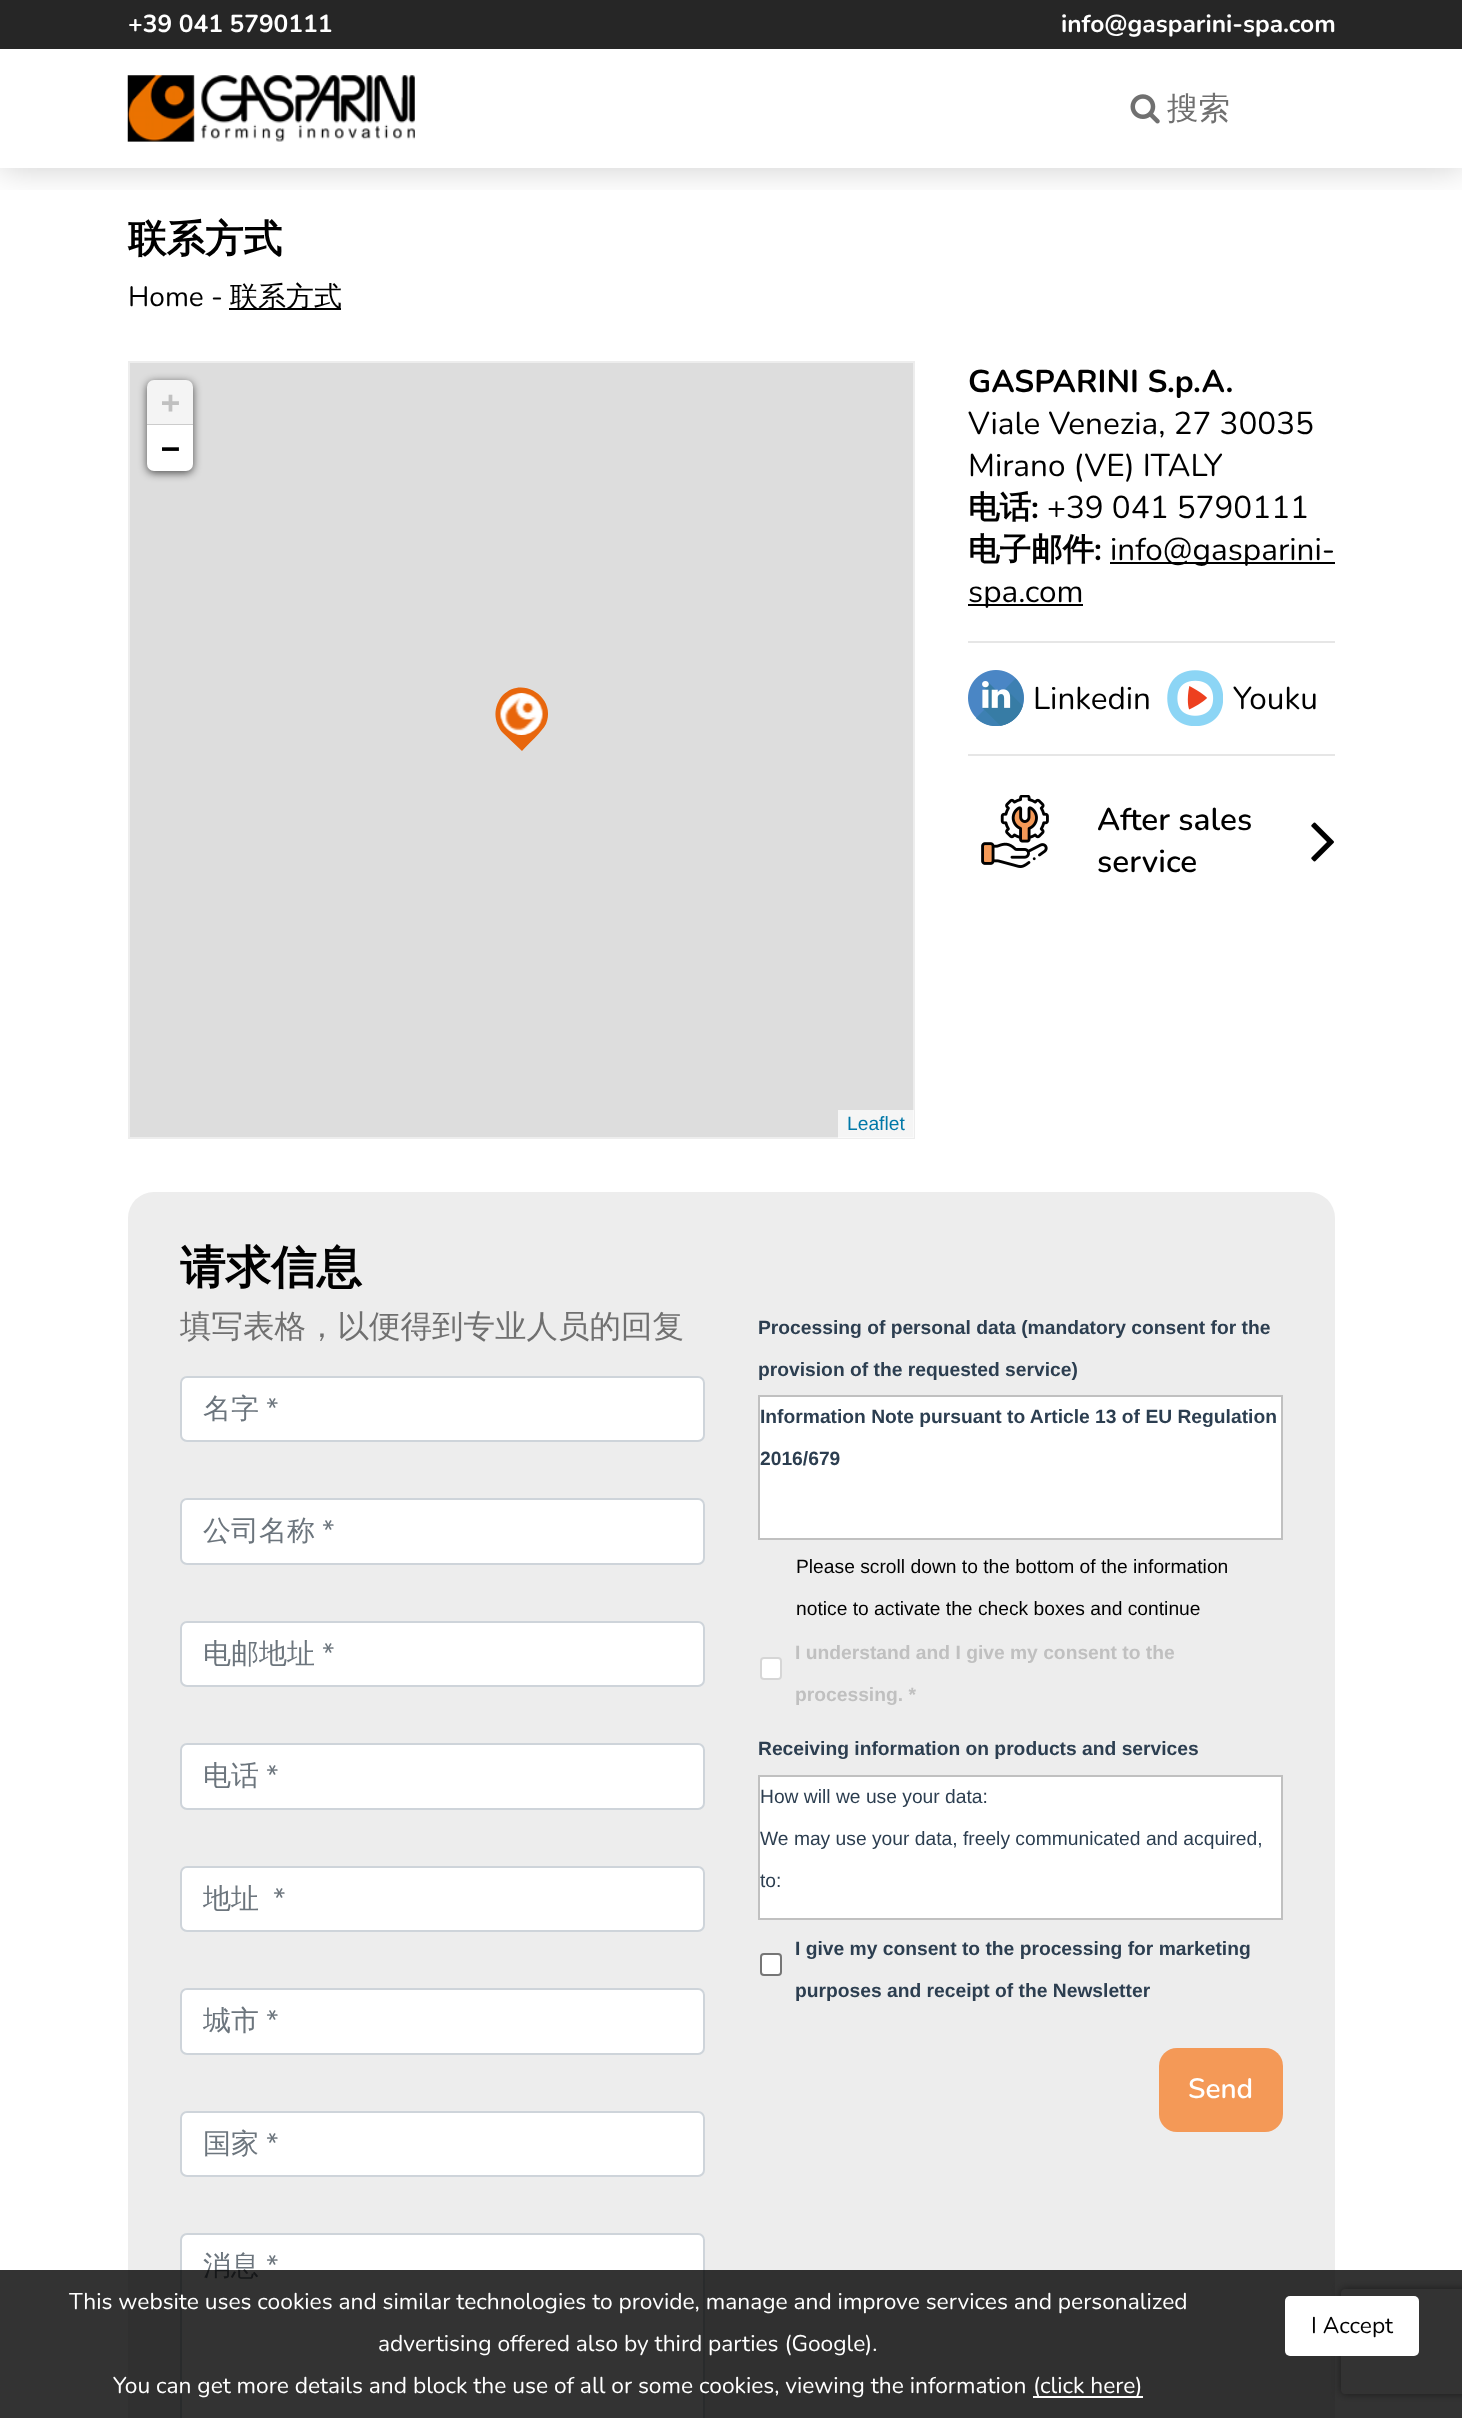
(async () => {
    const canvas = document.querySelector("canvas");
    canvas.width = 1462;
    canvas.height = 2418;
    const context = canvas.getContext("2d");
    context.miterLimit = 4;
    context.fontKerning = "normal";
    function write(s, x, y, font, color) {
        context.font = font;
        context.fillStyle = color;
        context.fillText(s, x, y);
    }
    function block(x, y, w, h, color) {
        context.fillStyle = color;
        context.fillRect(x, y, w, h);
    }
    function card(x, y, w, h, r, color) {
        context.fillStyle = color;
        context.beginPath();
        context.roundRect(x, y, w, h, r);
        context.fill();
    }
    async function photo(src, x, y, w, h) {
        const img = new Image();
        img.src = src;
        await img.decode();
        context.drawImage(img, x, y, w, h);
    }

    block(0, 0, 1462, 2418, "rgb(255, 255, 255)");
    context.save();
    context.beginPath();
    context.rect(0, 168, 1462, 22);
    context.clip();
    context.fillStyle = "rgba(0, 0, 0, 0.2)";
    context.filter = "blur(17.5px)";
    context.beginPath();
    context.rect(0, 0, 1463, 168);
    context.fill();
    context.filter = "none";
    context.restore();
    block(0, 0, 1462, 49, "rgb(38, 38, 38)");
    write("+39 041 5790111", 128, 32, "bold 24.5px Nunito", "rgb(255, 255, 255)");
    write("info@gasparini-spa.com", 1061, 32, "bold 24.5px Nunito", "rgb(255, 255, 255)");
    await photo("media/1.png", 127, 75, 288, 67);
    await photo("media/2.png", 1130, 94, 30, 30);
    write("搜索", 1167, 119, "500 31.5px WenQuanYi Zen Hei", "rgb(112, 112, 112)");
    write("联系方式", 128, 252, "bold 38.5px WenQuanYi Zen Hei", "rgb(0, 0, 0)");
    write("Home -", 128, 306, "28px Nunito", "rgb(0, 0, 0)");
    block(229, 308, 112, 2, "rgb(0, 0, 0)");
    write("联系方式", 230, 306, "500 28px WenQuanYi Zen Hei", "rgb(0, 0, 0)");
    context.fillStyle = "rgb(221, 221, 221)";
    context.beginPath();
    context.rect(129, 362, 785, 776);
    context.fill();
    context.strokeStyle = "rgb(237, 237, 237)";
    context.lineWidth = 2;
    context.stroke();
    context.fillStyle = "rgba(0, 0, 0, 0.65)";
    context.filter = "blur(4.5px)";
    context.beginPath();
    context.roundRect(147, 382, 46, 91, 7);
    context.fill();
    context.filter = "none";
    context.fillStyle = "rgb(244, 244, 244)";
    context.beginPath();
    context.roundRect(147, 380, 46, 45, [7, 7, 0, 0]);
    context.fill();
    block(147, 424, 46, 1, "rgb(204, 204, 204)");
    write("+", 161, 413, "bold 31.5px DejaVu Sans Mono", "rgb(192, 192, 192)");
    context.fillStyle = "rgb(255, 255, 255)";
    context.beginPath();
    context.roundRect(147, 425, 46, 46, [0, 0, 7, 7]);
    context.fill();
    write("−", 161, 459, "bold 31.5px DejaVu Sans Mono", "rgb(0, 0, 0)");
    block(838, 1110, 76, 28, "rgba(255, 255, 255, 0.7)");
    write("Leaflet", 847, 1130, "19.25px Liberation Sans", "rgb(0, 120, 168)");
    context.fillStyle = "rgb(232, 102, 12)";
    context.beginPath();
    context.moveTo(503, 695);
    context.bezierCurveTo(523, 675, 557, 698, 546, 724);
    context.bezierCurveTo(542, 732, 528, 744, 522, 751);
    context.lineTo(503, 733);
    context.bezierCurveTo(493, 722, 493, 706, 503, 695);
    context.closePath();
    context.fill();
    await photo("media/3.png", 500, 693, 43, 42);
    write("GASPARINI S.p.A.", 968, 392, "bold 31.5px Nunito", "rgb(0, 0, 0)");
    write("Viale Venezia, 27 30035", 968, 434, "31.5px Nunito", "rgb(0, 0, 0)");
    write("Mirano (VE) ITALY", 968, 476, "31.5px Nunito", "rgb(0, 0, 0)");
    write("电话", 968, 518, "bold 31.5px WenQuanYi Zen Hei", "rgb(0, 0, 0)");
    write(":", 1031, 518, "bold 31.5px Nunito", "rgb(0, 0, 0)");
    write("+39 041 5790111", 1047, 518, "31.5px Nunito", "rgb(0, 0, 0)");
    write("电子邮件", 968, 560, "bold 31.5px WenQuanYi Zen Hei", "rgb(0, 0, 0)");
    write(":", 1094, 560, "bold 31.5px Nunito", "rgb(0, 0, 0)");
    block(1110, 562, 225, 2, "rgb(0, 0, 0)");
    write("info@gasparini-", 1110, 560, "31.5px Nunito", "rgb(0, 0, 0)");
    block(968, 604, 115, 2, "rgb(0, 0, 0)");
    write("spa.com", 968, 602, "31.5px Nunito", "rgb(0, 0, 0)");
    block(968, 641, 367, 2, "rgb(230, 230, 230)");
    await photo("media/4.png", 968, 670, 56, 56);
    write("Linkedin", 1033, 709, "31.5px Nunito", "rgb(0, 0, 0)");
    await photo("media/5.png", 1167, 670, 56, 56);
    write("Youku", 1233, 709, "31.5px Nunito", "rgb(0, 0, 0)");
    block(968, 754, 367, 2, "rgb(230, 230, 230)");
    await photo("media/6.png", 981, 795, 68, 73);
    write("After sales", 1097, 830, "600 31.5px Nunito", "rgb(0, 0, 0)");
    write("service", 1097, 872, "600 31.5px Nunito", "rgb(0, 0, 0)");
    await photo("media/7.png", 1311, 822, 23, 40);
    card(128, 1192, 1207, 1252, 26, "rgb(237, 237, 237)");
    write("请求信息", 180, 1283, "bold 45.5px WenQuanYi Zen Hei", "rgb(0, 0, 0)");
    write("填写表格，以便得到专业人员的回复", 180, 1337, "500 31.5px WenQuanYi Zen Hei", "rgb(112, 112, 112)");
    context.fillStyle = "rgb(255, 255, 255)";
    context.beginPath();
    context.roundRect(181, 1377, 523, 64, 6);
    context.fill();
    context.strokeStyle = "rgb(206, 212, 218)";
    context.stroke();
    write("名字", 203, 1418, "500 28px WenQuanYi Zen Hei", "rgb(108, 117, 125)");
    write("*", 266, 1418, "28px Nunito", "rgb(108, 117, 125)");
    context.fillStyle = "rgb(255, 255, 255)";
    context.beginPath();
    context.roundRect(181, 1499, 523, 65, 6);
    context.fill();
    context.stroke();
    write("公司名称", 203, 1540, "500 28px WenQuanYi Zen Hei", "rgb(108, 117, 125)");
    write("*", 322, 1540, "28px Nunito", "rgb(108, 117, 125)");
    context.fillStyle = "rgb(255, 255, 255)";
    context.beginPath();
    context.roundRect(181, 1622, 523, 64, 6);
    context.fill();
    context.stroke();
    write("电邮地址", 203, 1663, "500 28px WenQuanYi Zen Hei", "rgb(108, 117, 125)");
    write("*", 322, 1663, "28px Nunito", "rgb(108, 117, 125)");
    context.fillStyle = "rgb(255, 255, 255)";
    context.beginPath();
    context.roundRect(181, 1744, 523, 65, 6);
    context.fill();
    context.stroke();
    write("电话", 203, 1785, "500 28px WenQuanYi Zen Hei", "rgb(108, 117, 125)");
    write("*", 266, 1785, "28px Nunito", "rgb(108, 117, 125)");
    context.fillStyle = "rgb(255, 255, 255)";
    context.beginPath();
    context.roundRect(181, 1867, 523, 64, 6);
    context.fill();
    context.stroke();
    write("地址", 203, 1908, "500 28px WenQuanYi Zen Hei", "rgb(108, 117, 125)");
    write("*", 273, 1908, "28px Nunito", "rgb(108, 117, 125)");
    context.fillStyle = "rgb(255, 255, 255)";
    context.beginPath();
    context.roundRect(181, 1989, 523, 65, 6);
    context.fill();
    context.stroke();
    write("城市", 203, 2030, "500 28px WenQuanYi Zen Hei", "rgb(108, 117, 125)");
    write("*", 266, 2030, "28px Nunito", "rgb(108, 117, 125)");
    context.fillStyle = "rgb(255, 255, 255)";
    context.beginPath();
    context.roundRect(181, 2112, 523, 64, 6);
    context.fill();
    context.stroke();
    write("国家", 203, 2153, "500 28px WenQuanYi Zen Hei", "rgb(108, 117, 125)");
    write("*", 266, 2153, "28px Nunito", "rgb(108, 117, 125)");
    card(182, 2235, 522, 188, 5, "rgb(255, 255, 255)");
    context.beginPath();
    context.roundRect(181, 2234, 523, 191, 6);
    context.stroke();
    write("消息", 203, 2275, "500 28px WenQuanYi Zen Hei", "rgb(108, 117, 125)");
    write("*", 266, 2275, "28px Nunito", "rgb(108, 117, 125)");
    write("Processing of personal data (mandatory consent for the", 758, 1334, "bold 19.25px Liberation Sans", "rgb(44, 62, 80)");
    write("provision of the requested service)", 758, 1376, "bold 19.25px Liberation Sans", "rgb(44, 62, 80)");
    context.fillStyle = "rgb(255, 255, 255)";
    context.beginPath();
    context.rect(759, 1396, 523, 143);
    context.fill();
    context.strokeStyle = "rgb(192, 192, 192)";
    context.stroke();
    write("Information Note pursuant to Article 13 of EU Regulation", 760, 1423, "bold 19.25px Liberation Sans", "rgb(44, 62, 80)");
    write("2016/679", 760, 1465, "bold 19.25px Liberation Sans", "rgb(44, 62, 80)");
    write("Please scroll down to the bottom of the information", 796, 1573, "19.25px Liberation Sans", "rgb(0, 0, 0)");
    write("notice to activate the check boxes and continue", 796, 1615, "19.25px Liberation Sans", "rgb(0, 0, 0)");
    card(760, 1657, 22, 23, 4, "rgb(255, 255, 255)");
    context.beginPath();
    context.roundRect(761, 1658, 20, 21, 3);
    context.strokeStyle = "rgba(118, 118, 118, 0.3)";
    context.stroke();
    write("I understand and I give my consent to the", 795, 1659, "bold 19.25px Liberation Sans", "rgb(192, 192, 192)");
    write("processing. *", 795, 1701, "bold 19.25px Liberation Sans", "rgb(192, 192, 192)");
    write("Receiving information on products and services", 758, 1755, "bold 19.25px Liberation Sans", "rgb(44, 62, 80)");
    context.fillStyle = "rgb(255, 255, 255)";
    context.beginPath();
    context.rect(759, 1776, 523, 143);
    context.fill();
    context.strokeStyle = "rgb(192, 192, 192)";
    context.stroke();
    write("How will we use your data:", 760, 1803, "19.25px Liberation Sans", "rgb(44, 62, 80)");
    write("We may use your data, freely communicated and acquired,", 760, 1845, "19.25px Liberation Sans", "rgb(44, 62, 80)");
    write("to:", 760, 1887, "19.25px Liberation Sans", "rgb(44, 62, 80)");
    context.fillStyle = "rgb(255, 255, 255)";
    context.beginPath();
    context.roundRect(761, 1954, 20, 21, 3);
    context.fill();
    context.strokeStyle = "rgb(118, 118, 118)";
    context.stroke();
    write("I give my consent to the processing for marketing", 795, 1955, "bold 19.25px Liberation Sans", "rgb(44, 62, 80)");
    write("purposes and receipt of the Newsletter", 795, 1997, "bold 19.25px Liberation Sans", "rgb(44, 62, 80)");
    card(1159, 2048, 124, 84, 18, "rgb(244, 153, 87)");
    write("Send", 1188, 2098, "600 28px Nunito", "rgb(255, 255, 255)");
    context.save();
    context.beginPath();
    context.moveTo(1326, 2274);
    context.lineTo(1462, 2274);
    context.lineTo(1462, 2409);
    context.lineTo(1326, 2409);
    context.closePath();
    context.moveTo(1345, 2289);
    context.lineTo(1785, 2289);
    context.bezierCurveTo(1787, 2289, 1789, 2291, 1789, 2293);
    context.lineTo(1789, 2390);
    context.bezierCurveTo(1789, 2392, 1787, 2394, 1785, 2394);
    context.lineTo(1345, 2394);
    context.bezierCurveTo(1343, 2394, 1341, 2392, 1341, 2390);
    context.lineTo(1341, 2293);
    context.bezierCurveTo(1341, 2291, 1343, 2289, 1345, 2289);
    context.closePath();
    context.clip("evenodd");
    context.fillStyle = "rgb(128, 128, 128)";
    context.filter = "blur(4.5px)";
    context.beginPath();
    context.roundRect(1341, 2289, 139, 105, 4);
    context.fill();
    context.filter = "none";
    context.restore();
    block(0, 2270, 1462, 148, "rgba(0, 0, 0, 0.8)");
    write("This website uses cookies and similar technologies to provide, manage and improve services and personalized", 69, 2309, "22.75px Nunito", "rgb(255, 255, 255)");
    card(1285, 2296, 134, 60, 5, "rgb(255, 255, 255)");
    write("I Accept", 1311, 2333, "22.75px Nunito", "rgb(0, 0, 0)");
    write("advertising offered also by third parties (Google).", 378, 2351, "22.75px Nunito", "rgb(255, 255, 255)");
    write("You can get more details and block the use of all or some cookies, viewing the information", 113, 2393, "22.75px Nunito", "rgb(255, 255, 255)");
    block(1033, 2396, 110, 2, "rgb(255, 255, 255)");
    write("(click here)", 1033, 2393, "22.75px Nunito", "rgb(255, 255, 255)");
})();
